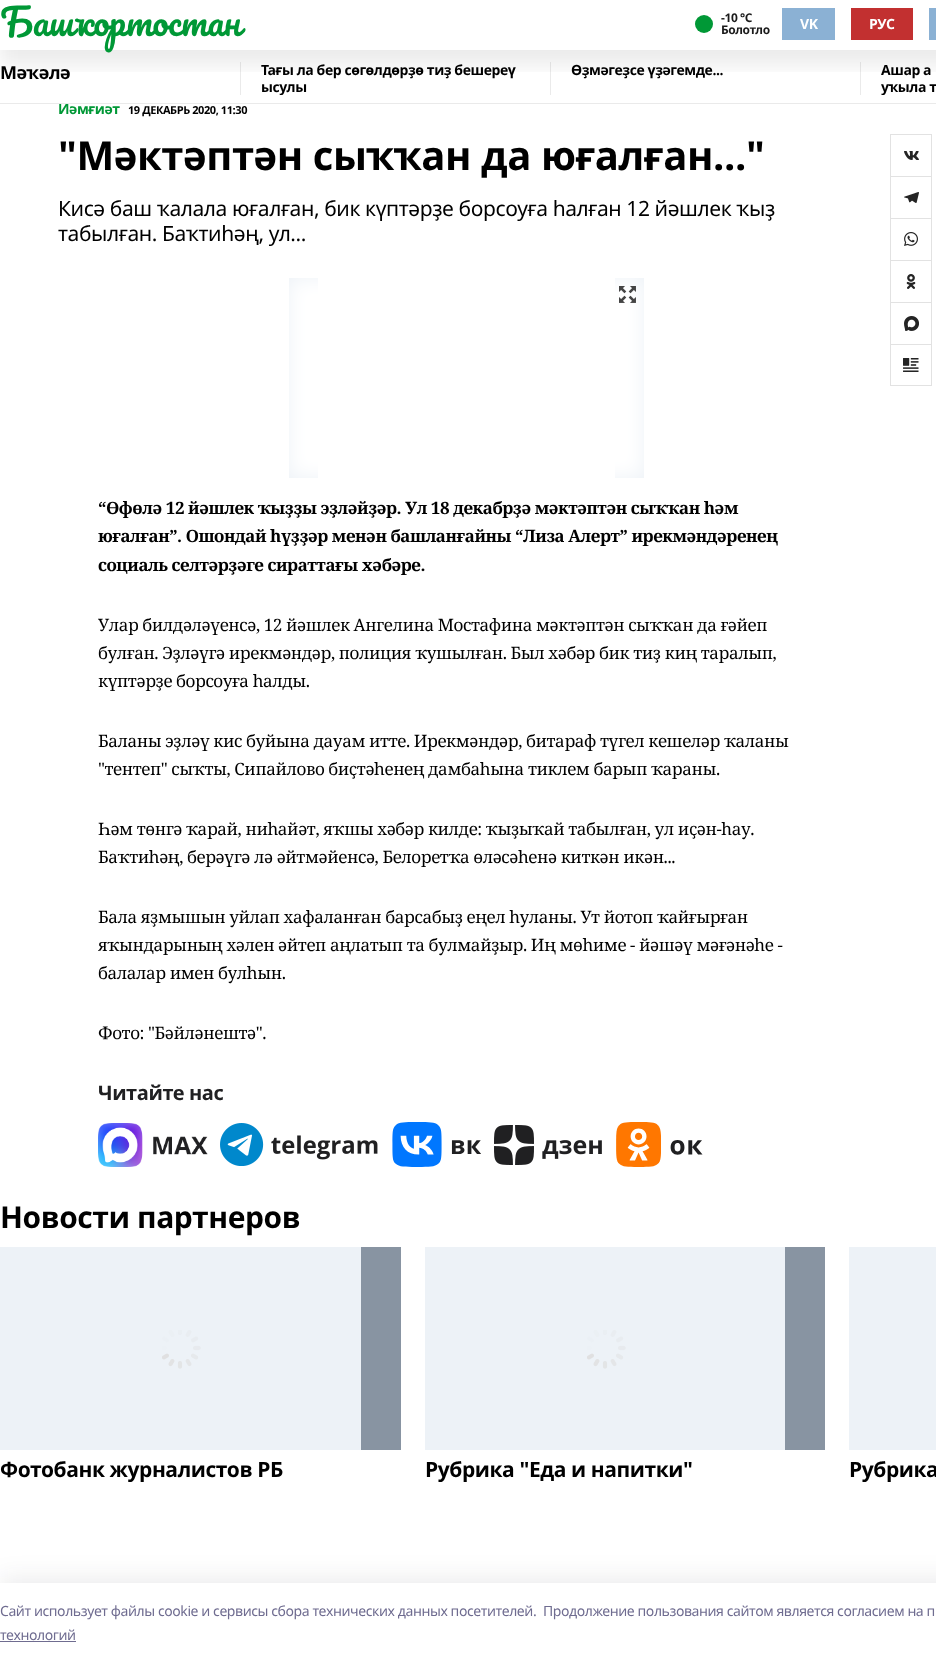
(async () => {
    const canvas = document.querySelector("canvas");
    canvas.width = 936;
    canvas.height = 1663;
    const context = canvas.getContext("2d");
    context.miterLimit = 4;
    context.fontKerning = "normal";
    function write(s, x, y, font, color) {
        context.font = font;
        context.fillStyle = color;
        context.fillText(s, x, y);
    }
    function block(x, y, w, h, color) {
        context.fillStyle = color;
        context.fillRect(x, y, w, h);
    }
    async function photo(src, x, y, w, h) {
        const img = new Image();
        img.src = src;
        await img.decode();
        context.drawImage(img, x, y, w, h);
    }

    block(0, 0, 936, 1663, "rgb(255, 255, 255)");
    block(240, 62, 1, 33, "rgb(234, 234, 234)");
    block(550, 62, 1, 33, "rgb(234, 234, 234)");
    block(860, 62, 1, 33, "rgb(234, 234, 234)");
    context.save();
    context.beginPath();
    context.rect(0, 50, 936, 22);
    context.clip();
    context.fillStyle = "rgba(0, 0, 0, 0.08)";
    context.filter = "blur(10px)";
    context.beginPath();
    context.rect(0, 15, 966, 50);
    context.fill();
    context.filter = "none";
    context.restore();
    context.letterSpacing = "-0.42px";
    write("Башҡортостан", 0, 36, "36px Pacifico", "rgb(0, 152, 54)");
    context.beginPath();
    context.arc(704, 24, 9, 0, Math.PI * 2);
    context.fill();
    write("-10 °С", 721, 22, "bold 12px Noto Sans", "rgb(26, 26, 26)");
    write("Болотло", 721, 34, "bold 12px Noto Sans", "rgb(26, 26, 26)");
    block(782, 8, 53, 32, "rgb(139, 177, 212)");
    write("VK", 800, 29, "bold 14px Noto Sans", "rgb(255, 255, 255)");
    block(851, 8, 62, 32, "rgb(194, 48, 48)");
    write("РУС", 869, 29, "bold 14px Noto Sans", "rgb(255, 255, 255)");
    block(929, 8, 7, 32, "rgb(139, 177, 212)");
    write("Йәмғиәт", 58, 114, "bold 14px Noto Sans", "rgb(0, 152, 54)");
    block(60, 100, 8, 3, "rgb(255, 255, 255)");
    block(0, 103, 936, 1, "rgb(234, 234, 234)");
    write("Мәҡәлә", 0, 79, "bold 18px Noto Sans", "rgb(0, 0, 0)");
    write("Тағы ла бер сөгөлдөрҙө тиҙ бешереү", 261, 75, "bold 14px Noto Sans", "rgb(0, 0, 0)");
    context.save();
    context.beginPath();
    context.rect(241, 62, 309, 33);
    context.clip();
    write("ысулы", 261, 92, "bold 14px Noto Sans", "rgb(0, 0, 0)");
    context.restore();
    write("Өҙмәгеҙсе үҙәгемде...", 571, 75, "bold 14px Noto Sans", "rgb(0, 0, 0)");
    write("Ашар а", 881, 75, "bold 14px Noto Sans", "rgb(0, 0, 0)");
    context.save();
    context.beginPath();
    context.rect(861, 62, 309, 33);
    context.clip();
    write("уҡыла т", 881, 92, "bold 14px Noto Sans", "rgb(0, 0, 0)");
    context.restore();
    write("19 ДЕКАБРЬ 2020, 11:30", 128, 114, "bold 11px Noto Sans", "rgb(0, 0, 0)");
    write("\"Мәктәптән сыҡҡан да юғалған...\"", 58, 170, "bold 40px Noto Sans", "rgb(0, 0, 0)");
    write("Кисә баш ҡалала юғалған, бик күптәрҙе борсоуға һалған 12 йәшлек ҡыҙ", 58, 216, "21px Noto Sans", "rgb(0, 0, 0)");
    write("табылған. Баҡтиһәң, ул...", 58, 241, "21px Noto Sans", "rgb(0, 0, 0)");
    block(289, 278, 355, 200, "rgb(237, 242, 247)");
    await photo("media/1.png", 289, 278, 355, 200);
    block(318, 278, 297, 200, "rgb(255, 255, 255)");
    await photo("media/2.png", 619, 286, 17, 17);
    write("“Өфөлә 12 йәшлек ҡыҙҙы эҙләйҙәр. Ул 18 декабрҙә мәктәптән сыҡҡан һәм", 98, 514, "bold 17px Noto Serif", "rgb(0, 0, 0)");
    write("юғалған”. Ошондай һүҙҙәр менән башланғайны “Лиза Алерт” ирекмәндәренең", 98, 542, "bold 17px Noto Serif", "rgb(0, 0, 0)");
    write("социаль селтәрҙәге сираттағы хәбәре.", 98, 571, "bold 17px Noto Serif", "rgb(0, 0, 0)");
    write("Улар билдәләүенсә, 12 йәшлек Ангелина Мостафина мәктәптән сыҡҡан да ғәйеп", 98, 631, "17px Noto Serif", "rgb(0, 0, 0)");
    write("булған. Эҙләүгә ирекмәндәр, полиция ҡушылған. Был хәбәр бик тиҙ киң таралып,", 98, 659, "17px Noto Serif", "rgb(0, 0, 0)");
    write("күптәрҙе борсоуға һалды.", 98, 687, "17px Noto Serif", "rgb(0, 0, 0)");
    write("Баланы эҙләү кис буйына дауам итте. Ирекмәндәр, битараф түгел кешеләр ҡаланы", 98, 747, "17px Noto Serif", "rgb(0, 0, 0)");
    write("\"тентеп\" сыҡты, Сипайлово биҫтәһенең дамбаһына тиклем барып ҡараны.", 98, 775, "17px Noto Serif", "rgb(0, 0, 0)");
    write("Һәм төнгә ҡарай, ниһайәт, яҡшы хәбәр килде: ҡыҙыҡай табылған, ул иҫән-һау.", 98, 835, "17px Noto Serif", "rgb(0, 0, 0)");
    write("Баҡтиһәң, берәүгә лә әйтмәйенсә, Белоретҡа өләсәһенә киткән икән...", 98, 863, "17px Noto Serif", "rgb(0, 0, 0)");
    write("Бала яҙмышын уйлап хафаланған барсабыҙ еңел һуланы. Ут йотоп ҡайғырған", 98, 923, "17px Noto Serif", "rgb(0, 0, 0)");
    write("яҡындарының хәлен әйтеп аңлатып та булмайҙыр. Иң мөһиме - йәшәү мәғәнәһе -", 98, 951, "17px Noto Serif", "rgb(0, 0, 0)");
    write("балалар имен булһын.", 98, 979, "17px Noto Serif", "rgb(0, 0, 0)");
    write("Фото: \"Бәйләнештә\".", 98, 1039, "17px Noto Serif", "rgb(0, 0, 0)");
    write("Читайте нас", 98, 1100, "bold 20px Noto Sans", "rgb(32, 32, 34)");
    await photo("media/3.png", 98, 1123, 110, 44);
    await photo("media/4.png", 220, 1123, 158, 43);
    await photo("media/5.png", 392, 1122, 89, 45);
    await photo("media/6.png", 494, 1125, 108, 40);
    await photo("media/7.png", 616, 1122, 87, 45);
    await photo("media/8.png", 904, 151, 15, 9);
    block(890, 134, 42, 1, "rgb(226, 226, 226)");
    block(931, 134, 1, 42, "rgb(226, 226, 226)");
    block(890, 134, 1, 42, "rgb(226, 226, 226)");
    await photo("media/9.png", 904, 192, 15, 11);
    block(890, 176, 42, 1, "rgb(226, 226, 226)");
    block(931, 176, 1, 42, "rgb(226, 226, 226)");
    block(890, 176, 1, 42, "rgb(226, 226, 226)");
    await photo("media/10.png", 904, 232, 14, 14);
    block(890, 218, 42, 1, "rgb(226, 226, 226)");
    block(931, 218, 1, 42, "rgb(226, 226, 226)");
    block(890, 218, 1, 42, "rgb(226, 226, 226)");
    await photo("media/11.png", 906, 274, 10, 15);
    block(890, 260, 42, 1, "rgb(226, 226, 226)");
    block(931, 260, 1, 42, "rgb(226, 226, 226)");
    block(890, 260, 1, 42, "rgb(226, 226, 226)");
    await photo("media/12.png", 904, 316, 15, 15);
    block(890, 302, 42, 1, "rgb(226, 226, 226)");
    block(931, 302, 1, 42, "rgb(226, 226, 226)");
    block(890, 302, 1, 42, "rgb(226, 226, 226)");
    await photo("media/13.png", 903, 358, 16, 14);
    context.strokeStyle = "rgb(226, 226, 226)";
    context.strokeRect(890.5, 344.5, 41, 41);
    write("Новости партнеров", 0, 1228, "bold 30px Noto Sans", "rgb(0, 0, 0)");
    block(361, 1247, 40, 203, "rgb(136, 148, 162)");
    block(0, 1247, 361, 203, "rgb(237, 242, 247)");
    await photo("media/14.png", 162, 1330, 39, 39);
    write("Фотобанк журналистов РБ", 0, 1477, "bold 21px Noto Sans", "rgb(0, 0, 0)");
    block(785, 1247, 40, 203, "rgb(136, 148, 162)");
    block(425, 1247, 360, 203, "rgb(237, 242, 247)");
    await photo("media/14.png", 587, 1330, 39, 39);
    write("Рубрика \"Еда и напитки\"", 425, 1477, "bold 21px Noto Sans", "rgb(0, 0, 0)");
    block(849, 1247, 87, 203, "rgb(237, 242, 247)");
    write("Рубрика", 849, 1477, "bold 21px Noto Sans", "rgb(0, 0, 0)");
    context.fillStyle = "rgba(20, 20, 43, 0.08)";
    context.filter = "blur(11.5px)";
    context.beginPath();
    context.rect(0, 1577, 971, 80);
    context.fill();
    context.filter = "none";
    block(0, 1583, 936, 80, "rgb(255, 255, 255)");
    write("Cайт использует файлы cookie и сервисы сбора технических данных посетителей.", 0, 1616, "14px Noto Sans", "rgb(111, 108, 144)");
    write("Продолжение пользования сайтом является согласием на п", 543, 1616, "14px Noto Sans", "rgb(111, 108, 144)");
    write("технологий", 0, 1640, "14px Noto Sans", "rgb(111, 108, 144)");
    block(0, 1641, 76, 1, "rgb(111, 108, 144)");
})();
